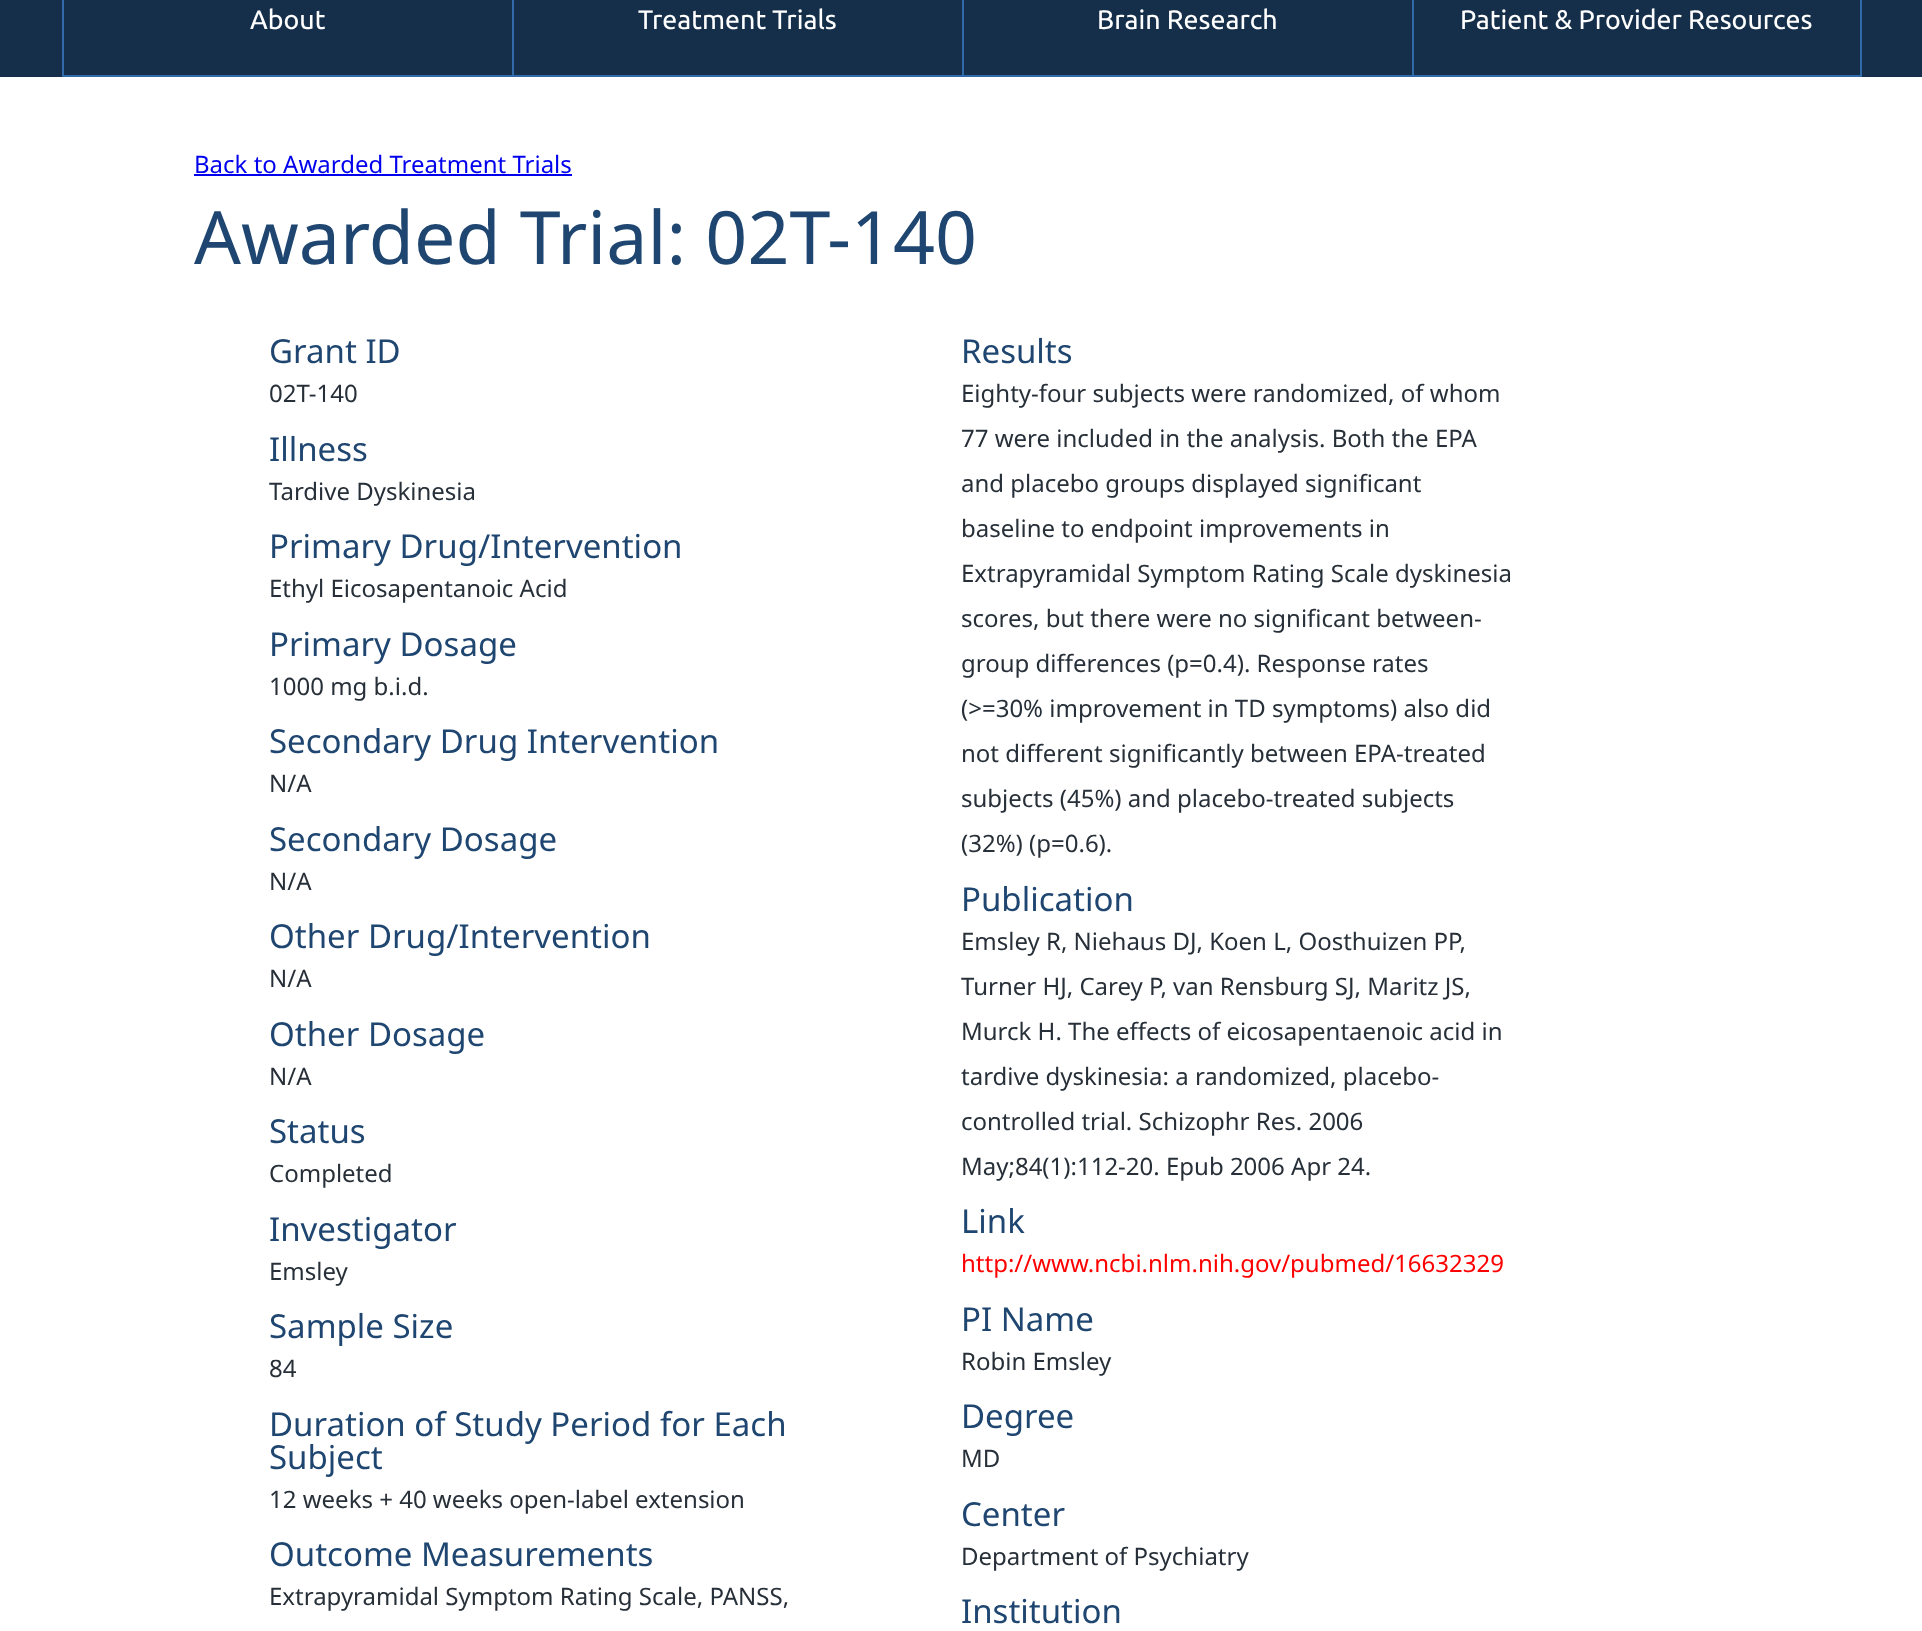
(async () => {
    const canvas = document.querySelector("canvas");
    canvas.width = 1922;
    canvas.height = 1631;
    const context = canvas.getContext("2d");
    context.miterLimit = 4;
    context.fontKerning = "normal";
    function write(s, x, y, font, color) {
        context.font = font;
        context.fillStyle = color;
        context.fillText(s, x, y);
    }
    function block(x, y, w, h, color) {
        context.fillStyle = color;
        context.fillRect(x, y, w, h);
    }

    block(0, 0, 1922, 1631, "rgb(255, 255, 255)");
    block(0, 0, 1922, 77, "rgb(21, 47, 75)");
    block(62, 75, 1350, 2, "rgb(49, 106, 168)");
    block(62, 0, 2, 77, "rgb(49, 106, 168)");
    write("About", 250, 29, "26.75px Ubuntu", "rgb(255, 255, 255)");
    block(512, 0, 2, 77, "rgb(49, 106, 168)");
    write("Treatment Trials", 638, 29, "26.75px Ubuntu", "rgb(255, 255, 255)");
    block(962, 0, 2, 77, "rgb(49, 106, 168)");
    write("Brain Research", 1097, 29, "26.75px Ubuntu", "rgb(255, 255, 255)");
    context.strokeStyle = "rgb(49, 106, 168)";
    context.lineWidth = 2;
    context.strokeRect(1413, -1, 448, 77);
    write("Patient & Provider Resources", 1460, 29, "26.75px Ubuntu", "rgb(255, 255, 255)");
    write("Back to Awarded Treatment Trials", 194, 173, "24px Noto Sans", "rgb(0, 0, 238)");
    block(194, 174, 378, 2, "rgb(0, 0, 238)");
    write("Awarded Trial: 02T-140", 194, 264, "73.5px Noto Sans", "rgb(31, 70, 112)");
    write("Grant ID", 269, 363, "33px Noto Sans", "rgb(31, 70, 112)");
    write("02T-140", 269, 402, "24px Noto Sans", "rgb(39, 47, 56)");
    write("Illness", 269, 461, "33px Noto Sans", "rgb(31, 70, 112)");
    write("Tardive Dyskinesia", 269, 500, "24px Noto Sans", "rgb(39, 47, 56)");
    write("Primary Drug/Intervention", 269, 558, "33px Noto Sans", "rgb(31, 70, 112)");
    write("Ethyl Eicosapentanoic Acid", 269, 597, "24px Noto Sans", "rgb(39, 47, 56)");
    write("Primary Dosage", 269, 656, "33px Noto Sans", "rgb(31, 70, 112)");
    write("1000 mg b.i.d.", 269, 695, "24px Noto Sans", "rgb(39, 47, 56)");
    write("Secondary Drug Intervention", 269, 753, "33px Noto Sans", "rgb(31, 70, 112)");
    write("N/A", 269, 792, "24px Noto Sans", "rgb(39, 47, 56)");
    write("Secondary Dosage", 269, 851, "33px Noto Sans", "rgb(31, 70, 112)");
    write("N/A", 269, 890, "24px Noto Sans", "rgb(39, 47, 56)");
    write("Other Drug/Intervention", 269, 948, "33px Noto Sans", "rgb(31, 70, 112)");
    write("N/A", 269, 987, "24px Noto Sans", "rgb(39, 47, 56)");
    write("Other Dosage", 269, 1046, "33px Noto Sans", "rgb(31, 70, 112)");
    write("N/A", 269, 1085, "24px Noto Sans", "rgb(39, 47, 56)");
    write("Status", 269, 1143, "33px Noto Sans", "rgb(31, 70, 112)");
    write("Completed", 269, 1182, "24px Noto Sans", "rgb(39, 47, 56)");
    write("Investigator", 269, 1241, "33px Noto Sans", "rgb(31, 70, 112)");
    write("Emsley", 269, 1280, "24px Noto Sans", "rgb(39, 47, 56)");
    write("Sample Size", 269, 1338, "33px Noto Sans", "rgb(31, 70, 112)");
    write("84", 269, 1377, "24px Noto Sans", "rgb(39, 47, 56)");
    write("Duration of Study Period for Each", 269, 1436, "33px Noto Sans", "rgb(31, 70, 112)");
    write("Subject", 269, 1469, "33px Noto Sans", "rgb(31, 70, 112)");
    write("12 weeks + 40 weeks open-label extension", 269, 1508, "24px Noto Sans", "rgb(39, 47, 56)");
    write("Outcome Measurements", 269, 1566, "33px Noto Sans", "rgb(31, 70, 112)");
    write("Extrapyramidal Symptom Rating Scale, PANSS,", 269, 1605, "24px Noto Sans", "rgb(39, 47, 56)");
    write("Results", 961, 363, "33px Noto Sans", "rgb(31, 70, 112)");
    write("Eighty-four subjects were randomized, of whom", 961, 402, "24px Noto Sans", "rgb(39, 47, 56)");
    write("77 were included in the analysis. Both the EPA", 961, 447, "24px Noto Sans", "rgb(39, 47, 56)");
    write("and placebo groups displayed significant", 961, 492, "24px Noto Sans", "rgb(39, 47, 56)");
    write("baseline to endpoint improvements in", 961, 537, "24px Noto Sans", "rgb(39, 47, 56)");
    write("Extrapyramidal Symptom Rating Scale dyskinesia", 961, 582, "24px Noto Sans", "rgb(39, 47, 56)");
    write("scores, but there were no significant between-", 961, 627, "24px Noto Sans", "rgb(39, 47, 56)");
    write("group differences (p=0.4). Response rates", 961, 672, "24px Noto Sans", "rgb(39, 47, 56)");
    write("(>=30% improvement in TD symptoms) also did", 961, 717, "24px Noto Sans", "rgb(39, 47, 56)");
    write("not different significantly between EPA-treated", 961, 762, "24px Noto Sans", "rgb(39, 47, 56)");
    write("subjects (45%) and placebo-treated subjects", 961, 807, "24px Noto Sans", "rgb(39, 47, 56)");
    write("(32%) (p=0.6).", 961, 852, "24px Noto Sans", "rgb(39, 47, 56)");
    write("Publication", 961, 911, "33px Noto Sans", "rgb(31, 70, 112)");
    write("Emsley R, Niehaus DJ, Koen L, Oosthuizen PP,", 961, 950, "24px Noto Sans", "rgb(39, 47, 56)");
    write("Turner HJ, Carey P, van Rensburg SJ, Maritz JS,", 961, 995, "24px Noto Sans", "rgb(39, 47, 56)");
    write("Murck H. The effects of eicosapentaenoic acid in", 961, 1040, "24px Noto Sans", "rgb(39, 47, 56)");
    write("tardive dyskinesia: a randomized, placebo-", 961, 1085, "24px Noto Sans", "rgb(39, 47, 56)");
    write("controlled trial. Schizophr Res. 2006", 961, 1130, "24px Noto Sans", "rgb(39, 47, 56)");
    write("May;84(1):112-20. Epub 2006 Apr 24.", 961, 1175, "24px Noto Sans", "rgb(39, 47, 56)");
    write("Link", 961, 1233, "33px Noto Sans", "rgb(31, 70, 112)");
    write("http://www.ncbi.nlm.nih.gov/pubmed/16632329", 961, 1272, "24px Noto Sans", "rgb(255, 0, 0)");
    write("PI Name", 961, 1331, "33px Noto Sans", "rgb(31, 70, 112)");
    write("Robin Emsley", 961, 1370, "24px Noto Sans", "rgb(39, 47, 56)");
    write("Degree", 961, 1428, "33px Noto Sans", "rgb(31, 70, 112)");
    write("MD", 961, 1467, "24px Noto Sans", "rgb(39, 47, 56)");
    write("Center", 961, 1526, "33px Noto Sans", "rgb(31, 70, 112)");
    write("Department of Psychiatry", 961, 1565, "24px Noto Sans", "rgb(39, 47, 56)");
    write("Institution", 961, 1623, "33px Noto Sans", "rgb(31, 70, 112)");
})();
